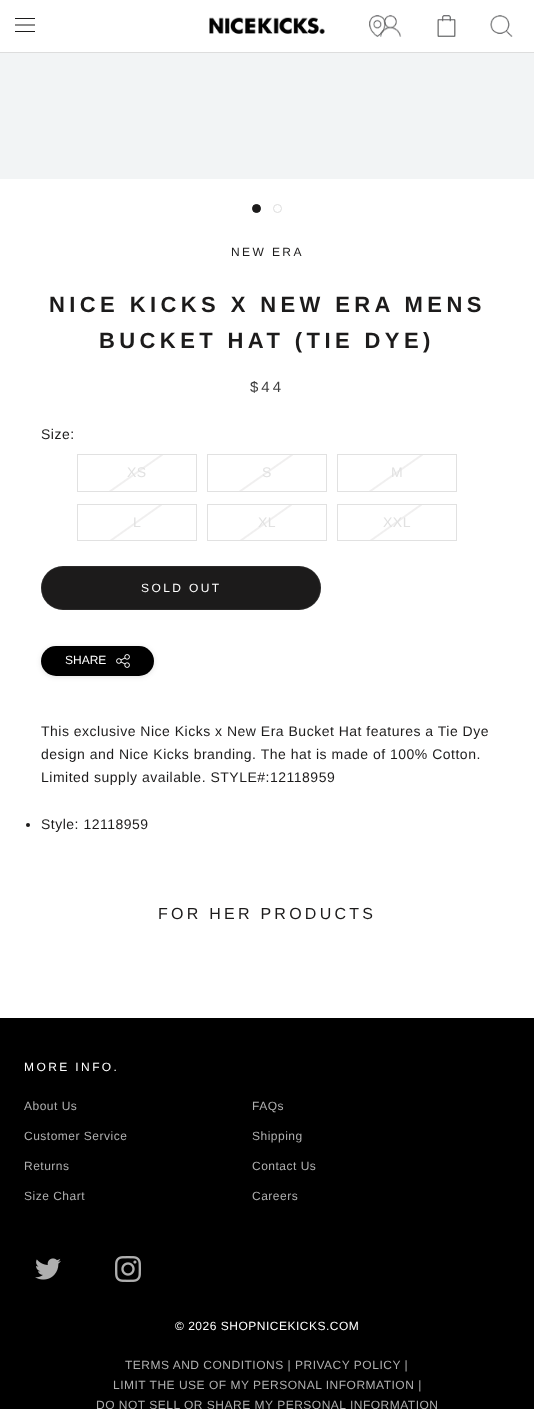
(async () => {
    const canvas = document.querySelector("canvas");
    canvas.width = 534;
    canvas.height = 1409;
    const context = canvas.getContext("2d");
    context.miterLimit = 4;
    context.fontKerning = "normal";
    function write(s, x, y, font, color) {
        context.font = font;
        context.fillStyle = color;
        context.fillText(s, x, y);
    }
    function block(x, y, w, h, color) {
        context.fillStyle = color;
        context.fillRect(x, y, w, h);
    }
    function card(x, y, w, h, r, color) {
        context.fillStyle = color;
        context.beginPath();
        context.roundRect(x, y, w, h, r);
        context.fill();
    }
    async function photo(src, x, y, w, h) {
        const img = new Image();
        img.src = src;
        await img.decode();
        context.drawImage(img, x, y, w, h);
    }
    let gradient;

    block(0, 0, 534, 1409, "rgb(255, 255, 255)");
    block(0, 52, 534, 1, "rgb(221, 221, 221)");
    await photo("media/1.png", 15, 18, 20, 14);
    await photo("media/2.png", 369, 15, 17, 22);
    await photo("media/3.png", 380, 15, 22, 22);
    await photo("media/4.png", 437, 15, 19, 22);
    await photo("media/5.png", 490, 15, 23, 22);
    await photo("media/6.png", 209, 17, 116, 17);
    block(0, 53, 534, 126, "rgb(242, 244, 245)");
    context.fillStyle = "rgb(28, 27, 27)";
    context.beginPath();
    context.arc(256.5, 208.5, 4, 0, Math.PI * 2);
    context.fill();
    context.strokeStyle = "rgb(28, 27, 27)";
    context.stroke();
    context.beginPath();
    context.arc(277.5, 208.5, 4, 0, Math.PI * 2);
    context.strokeStyle = "rgb(221, 221, 221)";
    context.stroke();
    context.letterSpacing = "2.4px";
    write("NEW ERA", 231, 256, "12px Liberation Sans", "rgb(28, 27, 27)");
    context.letterSpacing = "4.4px";
    write("NICE KICKS X NEW ERA MENS", 49, 312, "bold 22px Liberation Sans", "rgb(28, 27, 27)");
    write("BUCKET HAT (TIE DYE)", 99, 348, "bold 22px Liberation Sans", "rgb(28, 27, 27)");
    context.letterSpacing = "3px";
    write("$44", 250, 392, "15px Liberation Sans", "rgb(63, 63, 63)");
    context.letterSpacing = "0.5px";
    write("Size:", 41, 439, "14px Liberation Sans", "rgb(28, 27, 27)");
    gradient = context.createLinearGradient(109, 433, 165, 513);
    gradient.addColorStop(0.48, "rgb(255, 255, 255)");
    gradient.addColorStop(0.49, "rgb(240, 239, 239)");
    gradient.addColorStop(0.5, "rgb(240, 239, 239)");
    gradient.addColorStop(0.51, "rgb(255, 255, 255)");
    context.fillStyle = gradient;
    context.fillRect(109, 455, 54, 36);
    context.strokeStyle = "rgb(225, 225, 225)";
    context.strokeRect(77.5, 454.5, 119, 37);
    write("XS", 127, 477, "14px Liberation Sans", "rgb(225, 225, 225)");
    gradient = context.createLinearGradient(239, 433, 295, 513);
    gradient.addColorStop(0.48, "rgb(255, 255, 255)");
    gradient.addColorStop(0.49, "rgb(240, 239, 239)");
    gradient.addColorStop(0.5, "rgb(240, 239, 239)");
    gradient.addColorStop(0.51, "rgb(255, 255, 255)");
    context.fillStyle = gradient;
    context.fillRect(239, 455, 54, 36);
    context.strokeRect(207.5, 454.5, 119, 37);
    write("S", 262, 477, "14px Liberation Sans", "rgb(225, 225, 225)");
    gradient = context.createLinearGradient(369, 433, 425, 513);
    gradient.addColorStop(0.48, "rgb(255, 255, 255)");
    gradient.addColorStop(0.49, "rgb(240, 239, 239)");
    gradient.addColorStop(0.5, "rgb(240, 239, 239)");
    gradient.addColorStop(0.51, "rgb(255, 255, 255)");
    context.fillStyle = gradient;
    context.fillRect(369, 455, 54, 36);
    context.strokeRect(337.5, 454.5, 119, 37);
    write("M", 391, 477, "14px Liberation Sans", "rgb(225, 225, 225)");
    gradient = context.createLinearGradient(109, 483, 165, 562);
    gradient.addColorStop(0.48, "rgb(255, 255, 255)");
    gradient.addColorStop(0.49, "rgb(240, 239, 239)");
    gradient.addColorStop(0.5, "rgb(240, 239, 239)");
    gradient.addColorStop(0.51, "rgb(255, 255, 255)");
    context.fillStyle = gradient;
    context.fillRect(110, 505, 52, 35);
    context.strokeRect(77.5, 504.5, 119, 36);
    write("L", 133, 527, "14px Liberation Sans", "rgb(225, 225, 225)");
    gradient = context.createLinearGradient(239, 483, 295, 562);
    gradient.addColorStop(0.48, "rgb(255, 255, 255)");
    gradient.addColorStop(0.49, "rgb(240, 239, 239)");
    gradient.addColorStop(0.5, "rgb(240, 239, 239)");
    gradient.addColorStop(0.51, "rgb(255, 255, 255)");
    context.fillStyle = gradient;
    context.fillRect(240, 505, 52, 35);
    context.strokeRect(207.5, 504.5, 119, 36);
    write("XL", 258, 527, "14px Liberation Sans", "rgb(225, 225, 225)");
    gradient = context.createLinearGradient(369, 483, 425, 562);
    gradient.addColorStop(0.48, "rgb(255, 255, 255)");
    gradient.addColorStop(0.49, "rgb(240, 239, 239)");
    gradient.addColorStop(0.5, "rgb(240, 239, 239)");
    gradient.addColorStop(0.51, "rgb(255, 255, 255)");
    context.fillStyle = gradient;
    context.fillRect(370, 505, 52, 35);
    context.strokeRect(337.5, 504.5, 119, 36);
    write("XXL", 383, 527, "14px Liberation Sans", "rgb(225, 225, 225)");
    card(41, 566, 280, 44, 22, "rgb(28, 27, 27)");
    context.beginPath();
    context.roundRect(41.5, 566.5, 279, 43, 21.5);
    context.strokeStyle = "rgba(106, 106, 106, 0.2)";
    context.stroke();
    context.letterSpacing = "2.4px";
    write("SOLD OUT", 141, 592, "12px Liberation Sans", "rgb(255, 255, 255)");
    context.fillStyle = "rgba(54, 54, 54, 0.15)";
    context.filter = "blur(2.5px)";
    context.beginPath();
    context.roundRect(41, 647, 113, 30, 15);
    context.fill();
    context.filter = "none";
    card(41, 646, 113, 30, 15, "rgb(0, 0, 0)");
    context.letterSpacing = "0px";
    write("SHARE", 65, 664, "12px Liberation Sans", "rgb(255, 255, 255)");
    await photo("media/7.png", 116, 654, 14, 14);
    context.letterSpacing = "0.5px";
    write("This exclusive Nice Kicks x New Era Bucket Hat features a Tie Dye", 41, 736, "14px Liberation Sans", "rgb(28, 27, 27)");
    write("design and Nice Kicks branding. The hat is made of 100% Cotton.", 41, 759, "14px Liberation Sans", "rgb(28, 27, 27)");
    write("Limited supply available. STYLE#:12118959", 41, 782, "14px Liberation Sans", "rgb(28, 27, 27)");
    context.beginPath();
    context.arc(28, 825, 2, 0, Math.PI * 2);
    context.fill();
    write("Style: 12118959", 41, 829, "14px Liberation Sans", "rgb(28, 27, 27)");
    context.letterSpacing = "3.25px";
    write("FOR HER PRODUCTS", 158, 919, "16px Liberation Sans", "rgb(28, 27, 27)");
    block(0, 1018, 534, 391, "rgb(0, 0, 0)");
    context.letterSpacing = "2.4px";
    write("MORE INFO.", 24, 1071, "12px Liberation Sans", "rgb(255, 255, 255)");
    context.letterSpacing = "0.5px";
    write("About Us", 24, 1110, "12px Liberation Sans", "rgb(175, 175, 175)");
    write("FAQs", 252, 1110, "12px Liberation Sans", "rgb(175, 175, 175)");
    write("Customer Service", 24, 1140, "12px Liberation Sans", "rgb(175, 175, 175)");
    write("Shipping", 252, 1140, "12px Liberation Sans", "rgb(175, 175, 175)");
    write("Returns", 24, 1170, "12px Liberation Sans", "rgb(175, 175, 175)");
    write("Contact Us", 252, 1170, "12px Liberation Sans", "rgb(175, 175, 175)");
    write("Size Chart", 24, 1200, "12px Liberation Sans", "rgb(175, 175, 175)");
    write("Careers", 252, 1200, "12px Liberation Sans", "rgb(175, 175, 175)");
    await photo("media/8.png", 35, 1258, 26, 22);
    await photo("media/9.png", 115, 1256, 26, 26);
    write("© 2026 SHOPNICEKICKS.COM", 175, 1330, "12px Liberation Sans", "rgb(255, 255, 255)");
    write("TERMS AND CONDITIONS | PRIVACY POLICY |", 125, 1369, "12px Liberation Sans", "rgb(175, 175, 175)");
    write("LIMIT THE USE OF MY PERSONAL INFORMATION |", 113, 1389, "12px Liberation Sans", "rgb(175, 175, 175)");
    write("DO NOT SELL OR SHARE MY PERSONAL INFORMATION", 96, 1409, "12px Liberation Sans", "rgb(175, 175, 175)");
})();
